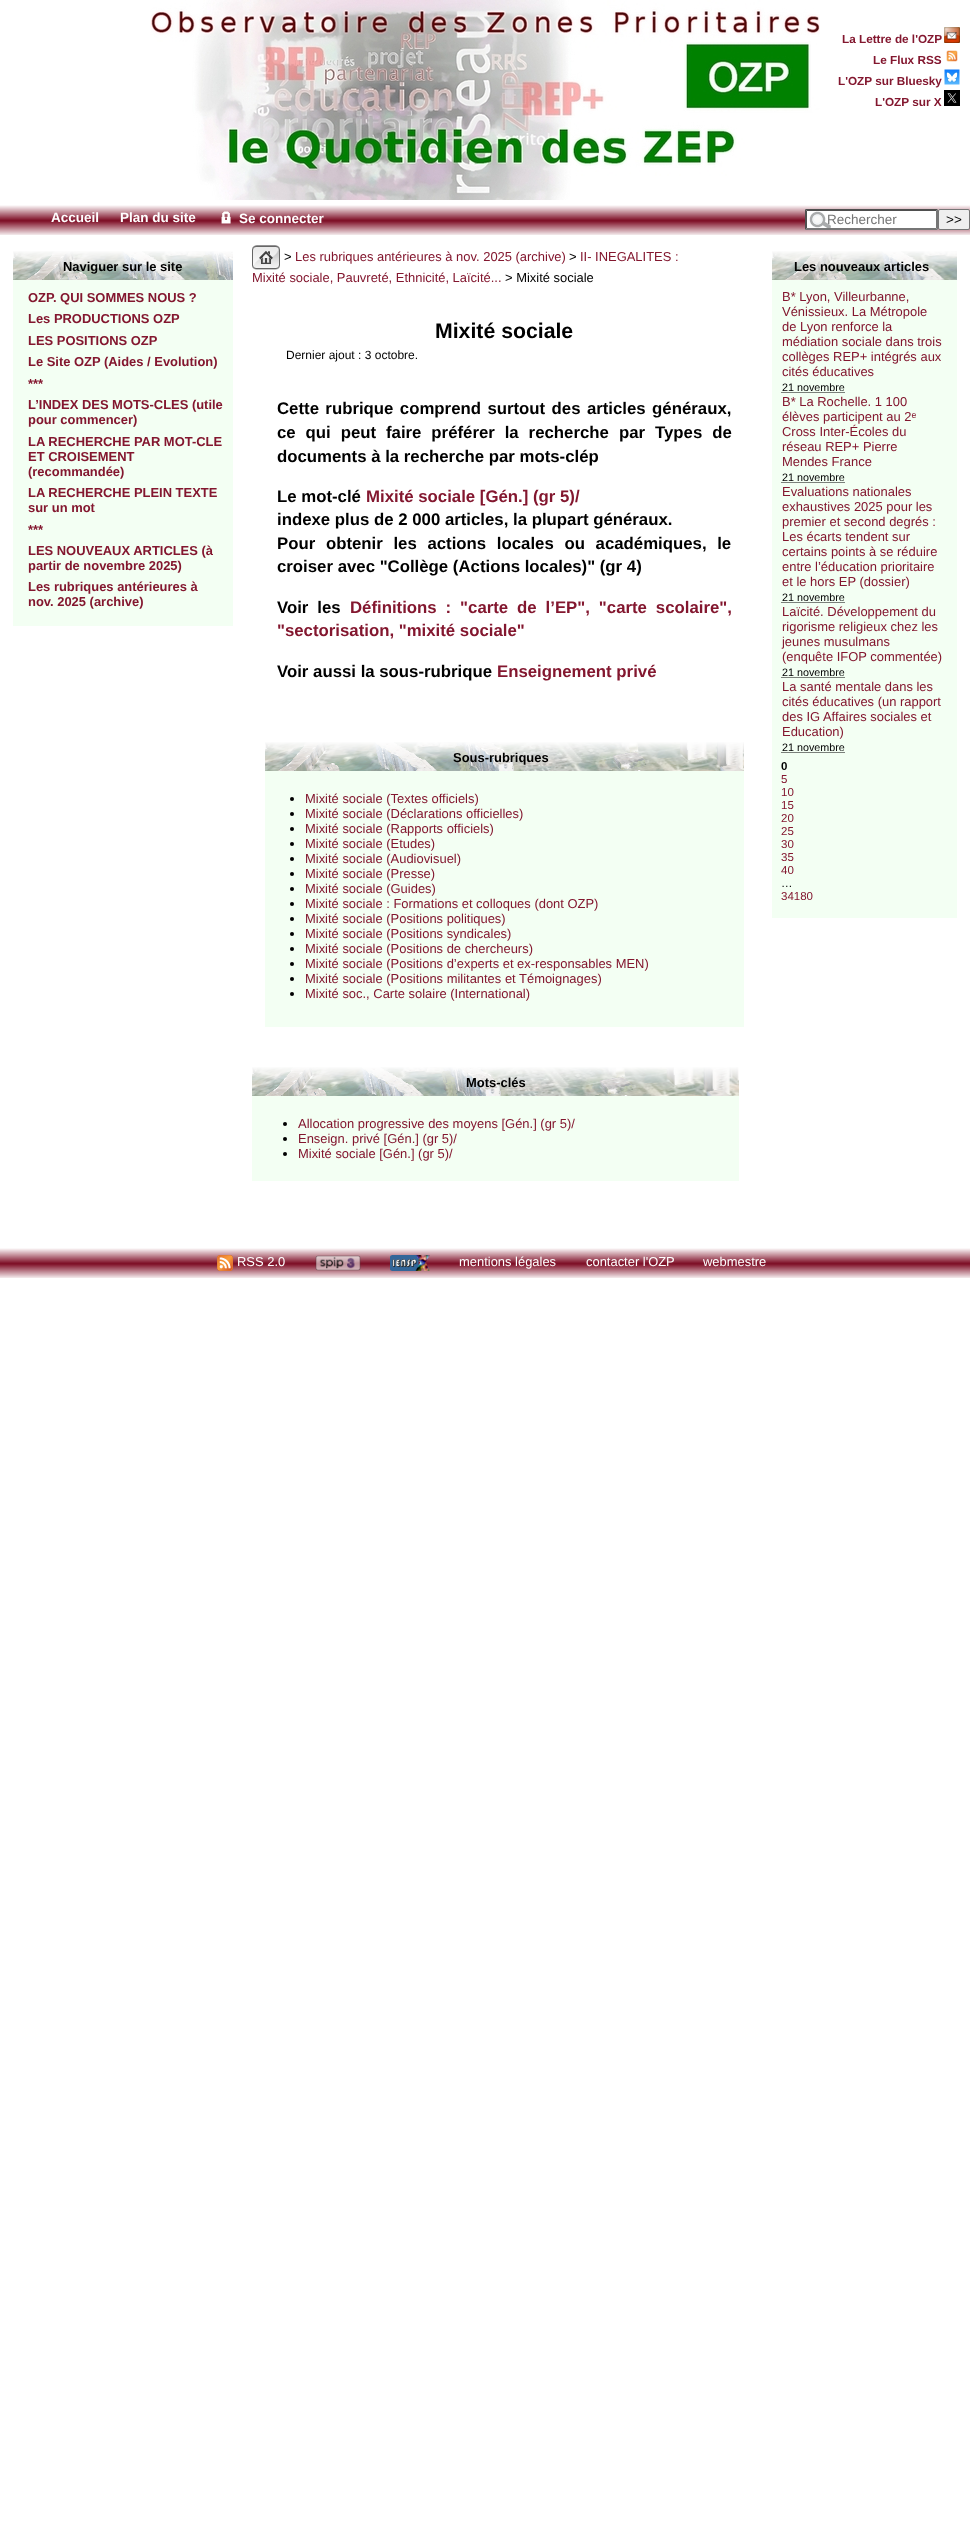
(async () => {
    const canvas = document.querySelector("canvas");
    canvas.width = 970;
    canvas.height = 2522;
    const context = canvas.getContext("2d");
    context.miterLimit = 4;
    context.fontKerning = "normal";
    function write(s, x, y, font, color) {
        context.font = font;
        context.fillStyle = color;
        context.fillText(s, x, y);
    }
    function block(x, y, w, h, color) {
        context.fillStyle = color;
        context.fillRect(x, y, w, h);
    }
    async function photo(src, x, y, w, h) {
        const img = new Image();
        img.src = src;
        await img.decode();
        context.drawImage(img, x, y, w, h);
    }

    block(0, 0, 970, 2522, "rgb(255, 255, 255)");
    await photo("media/1.png", 150, 0, 670, 200);
    write("La Lettre de l'OZP", 842, 43, "bold 11.75px Liberation Sans", "rgb(131, 23, 47)");
    await photo("media/2.png", 944, 27, 16, 16);
    write("Le Flux RSS", 873, 64, "bold 11.75px Liberation Sans", "rgb(131, 23, 47)");
    await photo("media/3.png", 946, 50, 12, 12);
    write("L'OZP sur Bluesky", 838, 85, "bold 11.75px Liberation Sans", "rgb(131, 23, 47)");
    await photo("media/4.png", 944, 69, 16, 16);
    write("L'OZP sur X", 875, 106, "bold 11.75px Liberation Sans", "rgb(131, 23, 47)");
    await photo("media/5.png", 944, 90, 16, 16);
    await photo("media/6.png", 0, 205, 970, 30);
    write("Accueil", 51, 222, "bold 13.5px Liberation Sans", "rgb(255, 255, 255)");
    write("Plan du site", 120, 222, "bold 13.5px Liberation Sans", "rgb(255, 255, 255)");
    await photo("media/7.png", 221, 211, 10, 13);
    write("Se connecter", 239, 223, "bold 13.5px Liberation Sans", "rgb(255, 255, 255)");
    block(805, 209, 133, 21, "rgb(255, 255, 255)");
    await photo("media/8.png", 809, 211, 22, 17);
    context.fillStyle = "rgb(79, 79, 79)";
    context.beginPath();
    context.moveTo(805, 209);
    context.lineTo(938, 209);
    context.lineTo(936, 211);
    context.lineTo(807, 211);
    context.closePath();
    context.fill();
    context.fillStyle = "rgb(118, 118, 118)";
    context.beginPath();
    context.moveTo(938, 209);
    context.lineTo(938, 230);
    context.lineTo(936, 228);
    context.lineTo(936, 211);
    context.closePath();
    context.fill();
    context.beginPath();
    context.moveTo(938, 230);
    context.lineTo(805, 230);
    context.lineTo(807, 228);
    context.lineTo(936, 228);
    context.closePath();
    context.fill();
    context.fillStyle = "rgb(79, 79, 79)";
    context.beginPath();
    context.moveTo(805, 230);
    context.lineTo(805, 209);
    context.lineTo(807, 211);
    context.lineTo(807, 228);
    context.closePath();
    context.fill();
    write("Rechercher", 827, 224, "13.5px Liberation Sans", "rgb(117, 117, 117)");
    context.fillStyle = "rgb(239, 239, 239)";
    context.beginPath();
    context.roundRect(938.5, 209.5, 31, 20, 1.5);
    context.fill();
    context.strokeStyle = "rgb(118, 118, 118)";
    context.stroke();
    write(">>", 946, 224, "13.5px Liberation Sans", "rgb(0, 0, 0)");
    block(13, 280, 220, 346, "rgb(243, 255, 243)");
    await photo("media/9.png", 13, 250, 220, 30);
    write("Naviguer sur le site", 63, 271, "bold 12.95px Liberation Sans", "rgb(0, 0, 0)");
    write("OZP. QUI SOMMES NOUS ?", 28, 302, "bold 12.95px Liberation Sans", "rgb(131, 23, 47)");
    write("Les PRODUCTIONS OZP", 28, 323, "bold 12.95px Liberation Sans", "rgb(131, 23, 47)");
    write("LES POSITIONS OZP", 28, 345, "bold 12.95px Liberation Sans", "rgb(131, 23, 47)");
    write("Le Site OZP (Aides / Evolution)", 28, 366, "bold 12.95px Liberation Sans", "rgb(131, 23, 47)");
    write("***", 28, 388, "bold 12.95px Liberation Sans", "rgb(131, 23, 47)");
    write("L’INDEX DES MOTS-CLES (utile", 28, 409, "bold 12.95px Liberation Sans", "rgb(131, 23, 47)");
    write("pour commencer)", 28, 424, "bold 12.95px Liberation Sans", "rgb(131, 23, 47)");
    write("LA RECHERCHE PAR MOT-CLE", 28, 446, "bold 12.95px Liberation Sans", "rgb(131, 23, 47)");
    write("ET CROISEMENT", 28, 461, "bold 12.95px Liberation Sans", "rgb(131, 23, 47)");
    write("(recommandée)", 28, 476, "bold 12.95px Liberation Sans", "rgb(131, 23, 47)");
    write("LA RECHERCHE PLEIN TEXTE", 28, 497, "bold 12.95px Liberation Sans", "rgb(131, 23, 47)");
    write("sur un mot", 28, 512, "bold 12.95px Liberation Sans", "rgb(131, 23, 47)");
    write("***", 28, 534, "bold 12.95px Liberation Sans", "rgb(131, 23, 47)");
    write("LES NOUVEAUX ARTICLES (à", 28, 555, "bold 12.95px Liberation Sans", "rgb(131, 23, 47)");
    write("partir de novembre 2025)", 28, 570, "bold 12.95px Liberation Sans", "rgb(131, 23, 47)");
    write("Les rubriques antérieures à", 28, 591, "bold 12.95px Liberation Sans", "rgb(131, 23, 47)");
    write("nov. 2025 (archive)", 28, 606, "bold 12.95px Liberation Sans", "rgb(131, 23, 47)");
    await photo("media/10.png", 252, 245, 28, 25);
    write(">", 284, 261, "12.95px Liberation Sans", "rgb(0, 0, 0)");
    write("Les rubriques antérieures à nov. 2025 (archive)", 295, 261, "12.95px Liberation Sans", "rgb(131, 23, 47)");
    write(">", 569, 261, "12.95px Liberation Sans", "rgb(0, 0, 0)");
    write("II- INEGALITES :", 580, 261, "12.95px Liberation Sans", "rgb(131, 23, 47)");
    write("Mixité sociale, Pauvreté, Ethnicité, Laïcité...", 252, 282, "12.95px Liberation Sans", "rgb(131, 23, 47)");
    write("> Mixité sociale", 505, 282, "12.95px Liberation Sans", "rgb(0, 0, 0)");
    write("Mixité sociale", 435, 338, "bold 21.25px Liberation Sans", "rgb(0, 0, 0)");
    write("Dernier ajout : 3 octobre.", 286, 359, "12px Liberation Sans", "rgb(0, 0, 0)");
    context.wordSpacing = "1.75px";
    write("Cette rubrique comprend surtout des articles généraux,", 277, 414, "bold 16.8px Liberation Sans", "rgb(0, 0, 0)");
    context.wordSpacing = "5.25px";
    write("ce qui peut faire préférer la recherche", 277, 438, "bold 16.8px Liberation Sans", "rgb(0, 0, 0)");
    write("par Types de", 619, 438, "bold 16.8px Liberation Sans", "rgb(0, 0, 0)");
    context.wordSpacing = "0px";
    write("documents à la recherche par mots-clép", 277, 462, "bold 16.8px Liberation Sans", "rgb(0, 0, 0)");
    write("Le mot-clé", 277, 502, "bold 16.8px Liberation Sans", "rgb(0, 0, 0)");
    write("Mixité sociale [Gén.] (gr 5)/", 366, 502, "bold 16.8px Liberation Sans", "rgb(131, 23, 47)");
    write("indexe plus de 2 000 articles, la plupart généraux.", 277, 525, "bold 16.8px Liberation Sans", "rgb(0, 0, 0)");
    context.wordSpacing = "6px";
    write("Pour obtenir les actions locales ou académiques, le", 277, 549, "bold 16.8px Liberation Sans", "rgb(0, 0, 0)");
    context.wordSpacing = "0px";
    write("croiser avec \"Collège (Actions locales)\" (gr 4)", 277, 572, "bold 16.8px Liberation Sans", "rgb(0, 0, 0)");
    context.wordSpacing = "4.25px";
    write("Voir les", 277, 613, "bold 16.8px Liberation Sans", "rgb(0, 0, 0)");
    write("Définitions : \"carte de l’EP\", \"carte scolaire\",", 350, 613, "bold 16.8px Liberation Sans", "rgb(131, 23, 47)");
    context.wordSpacing = "0px";
    write("\"sectorisation, \"mixité sociale\"", 277, 636, "bold 16.8px Liberation Sans", "rgb(131, 23, 47)");
    write("Voir aussi la sous-rubrique", 277, 677, "bold 16.8px Liberation Sans", "rgb(0, 0, 0)");
    write("Enseignement privé", 497, 677, "bold 16.8px Liberation Sans", "rgb(131, 23, 47)");
    block(265, 771, 479, 256, "rgb(243, 255, 243)");
    await photo("media/11.png", 265, 741, 479, 30);
    write("Sous-rubriques", 453, 762, "bold 12.95px Liberation Sans", "rgb(0, 0, 0)");
    context.beginPath();
    context.arc(292, 799, 2, 0, Math.PI * 2);
    context.fill();
    write("Mixité sociale (Textes officiels)", 305, 803, "12.95px Liberation Sans", "rgb(131, 23, 47)");
    context.fillStyle = "rgb(0, 0, 0)";
    context.beginPath();
    context.arc(292, 814, 2, 0, Math.PI * 2);
    context.fill();
    write("Mixité sociale (Déclarations officielles)", 305, 818, "12.95px Liberation Sans", "rgb(131, 23, 47)");
    context.fillStyle = "rgb(0, 0, 0)";
    context.beginPath();
    context.arc(292, 829, 2, 0, Math.PI * 2);
    context.fill();
    write("Mixité sociale (Rapports officiels)", 305, 833, "12.95px Liberation Sans", "rgb(131, 23, 47)");
    context.fillStyle = "rgb(0, 0, 0)";
    context.beginPath();
    context.arc(292, 844, 2, 0, Math.PI * 2);
    context.fill();
    write("Mixité sociale (Etudes)", 305, 848, "12.95px Liberation Sans", "rgb(131, 23, 47)");
    context.fillStyle = "rgb(0, 0, 0)";
    context.beginPath();
    context.arc(292, 859, 2, 0, Math.PI * 2);
    context.fill();
    write("Mixité sociale (Audiovisuel)", 305, 863, "12.95px Liberation Sans", "rgb(131, 23, 47)");
    context.fillStyle = "rgb(0, 0, 0)";
    context.beginPath();
    context.arc(292, 874, 2, 0, Math.PI * 2);
    context.fill();
    write("Mixité sociale (Presse)", 305, 878, "12.95px Liberation Sans", "rgb(131, 23, 47)");
    context.fillStyle = "rgb(0, 0, 0)";
    context.beginPath();
    context.arc(292, 889, 2, 0, Math.PI * 2);
    context.fill();
    write("Mixité sociale (Guides)", 305, 893, "12.95px Liberation Sans", "rgb(131, 23, 47)");
    context.fillStyle = "rgb(0, 0, 0)";
    context.beginPath();
    context.arc(292, 904, 2, 0, Math.PI * 2);
    context.fill();
    write("Mixité sociale : Formations et colloques (dont OZP)", 305, 908, "12.95px Liberation Sans", "rgb(131, 23, 47)");
    context.fillStyle = "rgb(0, 0, 0)";
    context.beginPath();
    context.arc(292, 919, 2, 0, Math.PI * 2);
    context.fill();
    write("Mixité sociale (Positions politiques)", 305, 923, "12.95px Liberation Sans", "rgb(131, 23, 47)");
    context.fillStyle = "rgb(0, 0, 0)";
    context.beginPath();
    context.arc(292, 934, 2, 0, Math.PI * 2);
    context.fill();
    write("Mixité sociale (Positions syndicales)", 305, 938, "12.95px Liberation Sans", "rgb(131, 23, 47)");
    context.fillStyle = "rgb(0, 0, 0)";
    context.beginPath();
    context.arc(292, 949, 2, 0, Math.PI * 2);
    context.fill();
    write("Mixité sociale (Positions de chercheurs)", 305, 953, "12.95px Liberation Sans", "rgb(131, 23, 47)");
    context.fillStyle = "rgb(0, 0, 0)";
    context.beginPath();
    context.arc(292, 964, 2, 0, Math.PI * 2);
    context.fill();
    write("Mixité sociale (Positions d’experts et ex-responsables MEN)", 305, 968, "12.95px Liberation Sans", "rgb(131, 23, 47)");
    context.fillStyle = "rgb(0, 0, 0)";
    context.beginPath();
    context.arc(292, 979, 2, 0, Math.PI * 2);
    context.fill();
    write("Mixité sociale (Positions militantes et Témoignages)", 305, 983, "12.95px Liberation Sans", "rgb(131, 23, 47)");
    context.fillStyle = "rgb(0, 0, 0)";
    context.beginPath();
    context.arc(292, 994, 2, 0, Math.PI * 2);
    context.fill();
    write("Mixité soc., Carte solaire (International)", 305, 998, "12.95px Liberation Sans", "rgb(131, 23, 47)");
    block(252, 1096, 487, 85, "rgb(243, 255, 243)");
    await photo("media/12.png", 252, 1066, 487, 30);
    write("Mots-clés", 466, 1087, "bold 12.95px Liberation Sans", "rgb(0, 0, 0)");
    context.beginPath();
    context.arc(285, 1124, 2, 0, Math.PI * 2);
    context.fill();
    write("Allocation progressive des moyens [Gén.] (gr 5)/", 298, 1128, "12.95px Liberation Sans", "rgb(131, 23, 47)");
    context.fillStyle = "rgb(0, 0, 0)";
    context.beginPath();
    context.arc(285, 1139, 2, 0, Math.PI * 2);
    context.fill();
    write("Enseign. privé [Gén.] (gr 5)/", 298, 1143, "12.95px Liberation Sans", "rgb(131, 23, 47)");
    context.fillStyle = "rgb(0, 0, 0)";
    context.beginPath();
    context.arc(285, 1154, 2, 0, Math.PI * 2);
    context.fill();
    write("Mixité sociale [Gén.] (gr 5)/", 298, 1158, "12.95px Liberation Sans", "rgb(131, 23, 47)");
    block(772, 280, 185, 638, "rgb(243, 255, 243)");
    await photo("media/13.png", 772, 250, 185, 30);
    write("Les nouveaux articles", 794, 271, "bold 12.95px Liberation Sans", "rgb(0, 0, 0)");
    write("B* Lyon, Villeurbanne,", 782, 301, "12.95px Liberation Sans", "rgb(131, 23, 47)");
    write("Vénissieux. La Métropole", 782, 316, "12.95px Liberation Sans", "rgb(131, 23, 47)");
    write("de Lyon renforce la", 782, 331, "12.95px Liberation Sans", "rgb(131, 23, 47)");
    write("médiation sociale dans trois", 782, 346, "12.95px Liberation Sans", "rgb(131, 23, 47)");
    write("collèges REP+ intégrés aux", 782, 361, "12.95px Liberation Sans", "rgb(131, 23, 47)");
    write("cités éducatives", 782, 376, "12.95px Liberation Sans", "rgb(131, 23, 47)");
    write("21 novembre", 782, 391, "10.75px Liberation Sans", "rgb(0, 0, 0)");
    context.beginPath();
    context.moveTo(781.5, 392.5);
    context.lineTo(844.5, 392.5);
    context.strokeStyle = "rgb(0, 0, 0)";
    context.setLineDash([1, 1]);
    context.stroke();
    write("B* La Rochelle. 1 100", 782, 406, "12.95px Liberation Sans", "rgb(131, 23, 47)");
    write("élèves participent au 2ᵉ", 782, 421, "12.95px Liberation Sans", "rgb(131, 23, 47)");
    write("Cross Inter-Écoles du", 782, 436, "12.95px Liberation Sans", "rgb(131, 23, 47)");
    write("réseau REP+ Pierre", 782, 451, "12.95px Liberation Sans", "rgb(131, 23, 47)");
    write("Mendes France", 782, 466, "12.95px Liberation Sans", "rgb(131, 23, 47)");
    write("21 novembre", 782, 481, "10.75px Liberation Sans", "rgb(0, 0, 0)");
    context.beginPath();
    context.moveTo(781.5, 482.5);
    context.lineTo(844.5, 482.5);
    context.stroke();
    write("Evaluations nationales", 782, 496, "12.95px Liberation Sans", "rgb(131, 23, 47)");
    write("exhaustives 2025 pour les", 782, 511, "12.95px Liberation Sans", "rgb(131, 23, 47)");
    write("premier et second degrés :", 782, 526, "12.95px Liberation Sans", "rgb(131, 23, 47)");
    write("Les écarts tendent sur", 782, 541, "12.95px Liberation Sans", "rgb(131, 23, 47)");
    write("certains points à se réduire", 782, 556, "12.95px Liberation Sans", "rgb(131, 23, 47)");
    write("entre l’éducation prioritaire", 782, 571, "12.95px Liberation Sans", "rgb(131, 23, 47)");
    write("et le hors EP (dossier)", 782, 586, "12.95px Liberation Sans", "rgb(131, 23, 47)");
    write("21 novembre", 782, 601, "10.75px Liberation Sans", "rgb(0, 0, 0)");
    context.beginPath();
    context.moveTo(781.5, 602.5);
    context.lineTo(844.5, 602.5);
    context.stroke();
    write("Laïcité. Développement du", 782, 616, "12.95px Liberation Sans", "rgb(131, 23, 47)");
    write("rigorisme religieux chez les", 782, 631, "12.95px Liberation Sans", "rgb(131, 23, 47)");
    write("jeunes musulmans", 782, 646, "12.95px Liberation Sans", "rgb(131, 23, 47)");
    write("(enquête IFOP commentée)", 782, 661, "12.95px Liberation Sans", "rgb(131, 23, 47)");
    write("21 novembre", 782, 676, "10.75px Liberation Sans", "rgb(0, 0, 0)");
    context.beginPath();
    context.moveTo(781.5, 677.5);
    context.lineTo(844.5, 677.5);
    context.stroke();
    write("La santé mentale dans les", 782, 691, "12.95px Liberation Sans", "rgb(131, 23, 47)");
    write("cités éducatives (un rapport", 782, 706, "12.95px Liberation Sans", "rgb(131, 23, 47)");
    write("des IG Affaires sociales et", 782, 721, "12.95px Liberation Sans", "rgb(131, 23, 47)");
    write("Education)", 782, 736, "12.95px Liberation Sans", "rgb(131, 23, 47)");
    write("21 novembre", 782, 751, "10.75px Liberation Sans", "rgb(0, 0, 0)");
    context.beginPath();
    context.moveTo(781.5, 752.5);
    context.lineTo(844.5, 752.5);
    context.stroke();
    write("0", 781, 770, "bold 11.5px Liberation Sans", "rgb(0, 0, 0)");
    write("5", 781, 783, "11.5px Liberation Sans", "rgb(131, 23, 47)");
    write("10", 781, 796, "11.5px Liberation Sans", "rgb(131, 23, 47)");
    write("15", 781, 809, "11.5px Liberation Sans", "rgb(131, 23, 47)");
    write("20", 781, 822, "11.5px Liberation Sans", "rgb(131, 23, 47)");
    write("25", 781, 835, "11.5px Liberation Sans", "rgb(131, 23, 47)");
    write("30", 781, 848, "11.5px Liberation Sans", "rgb(131, 23, 47)");
    write("35", 781, 861, "11.5px Liberation Sans", "rgb(131, 23, 47)");
    write("40", 781, 874, "11.5px Liberation Sans", "rgb(131, 23, 47)");
    write("…", 781, 887, "11.5px Liberation Sans", "rgb(0, 0, 0)");
    write("34180", 781, 900, "11.5px Liberation Sans", "rgb(131, 23, 47)");
    await photo("media/6.png", 0, 1248, 970, 30);
    await photo("media/14.png", 217, 1255, 16, 16);
    write("RSS 2.0", 237, 1266, "12.95px Liberation Sans", "rgb(255, 255, 255)");
    await photo("media/15.png", 315, 1255, 46, 16);
    await photo("media/16.png", 390, 1255, 40, 16);
    write("mentions légales", 459, 1266, "12.95px Liberation Sans", "rgb(255, 255, 255)");
    write("contacter l'OZP", 586, 1266, "12.95px Liberation Sans", "rgb(255, 255, 255)");
    write("webmestre", 703, 1266, "12.95px Liberation Sans", "rgb(255, 255, 255)");
})();
